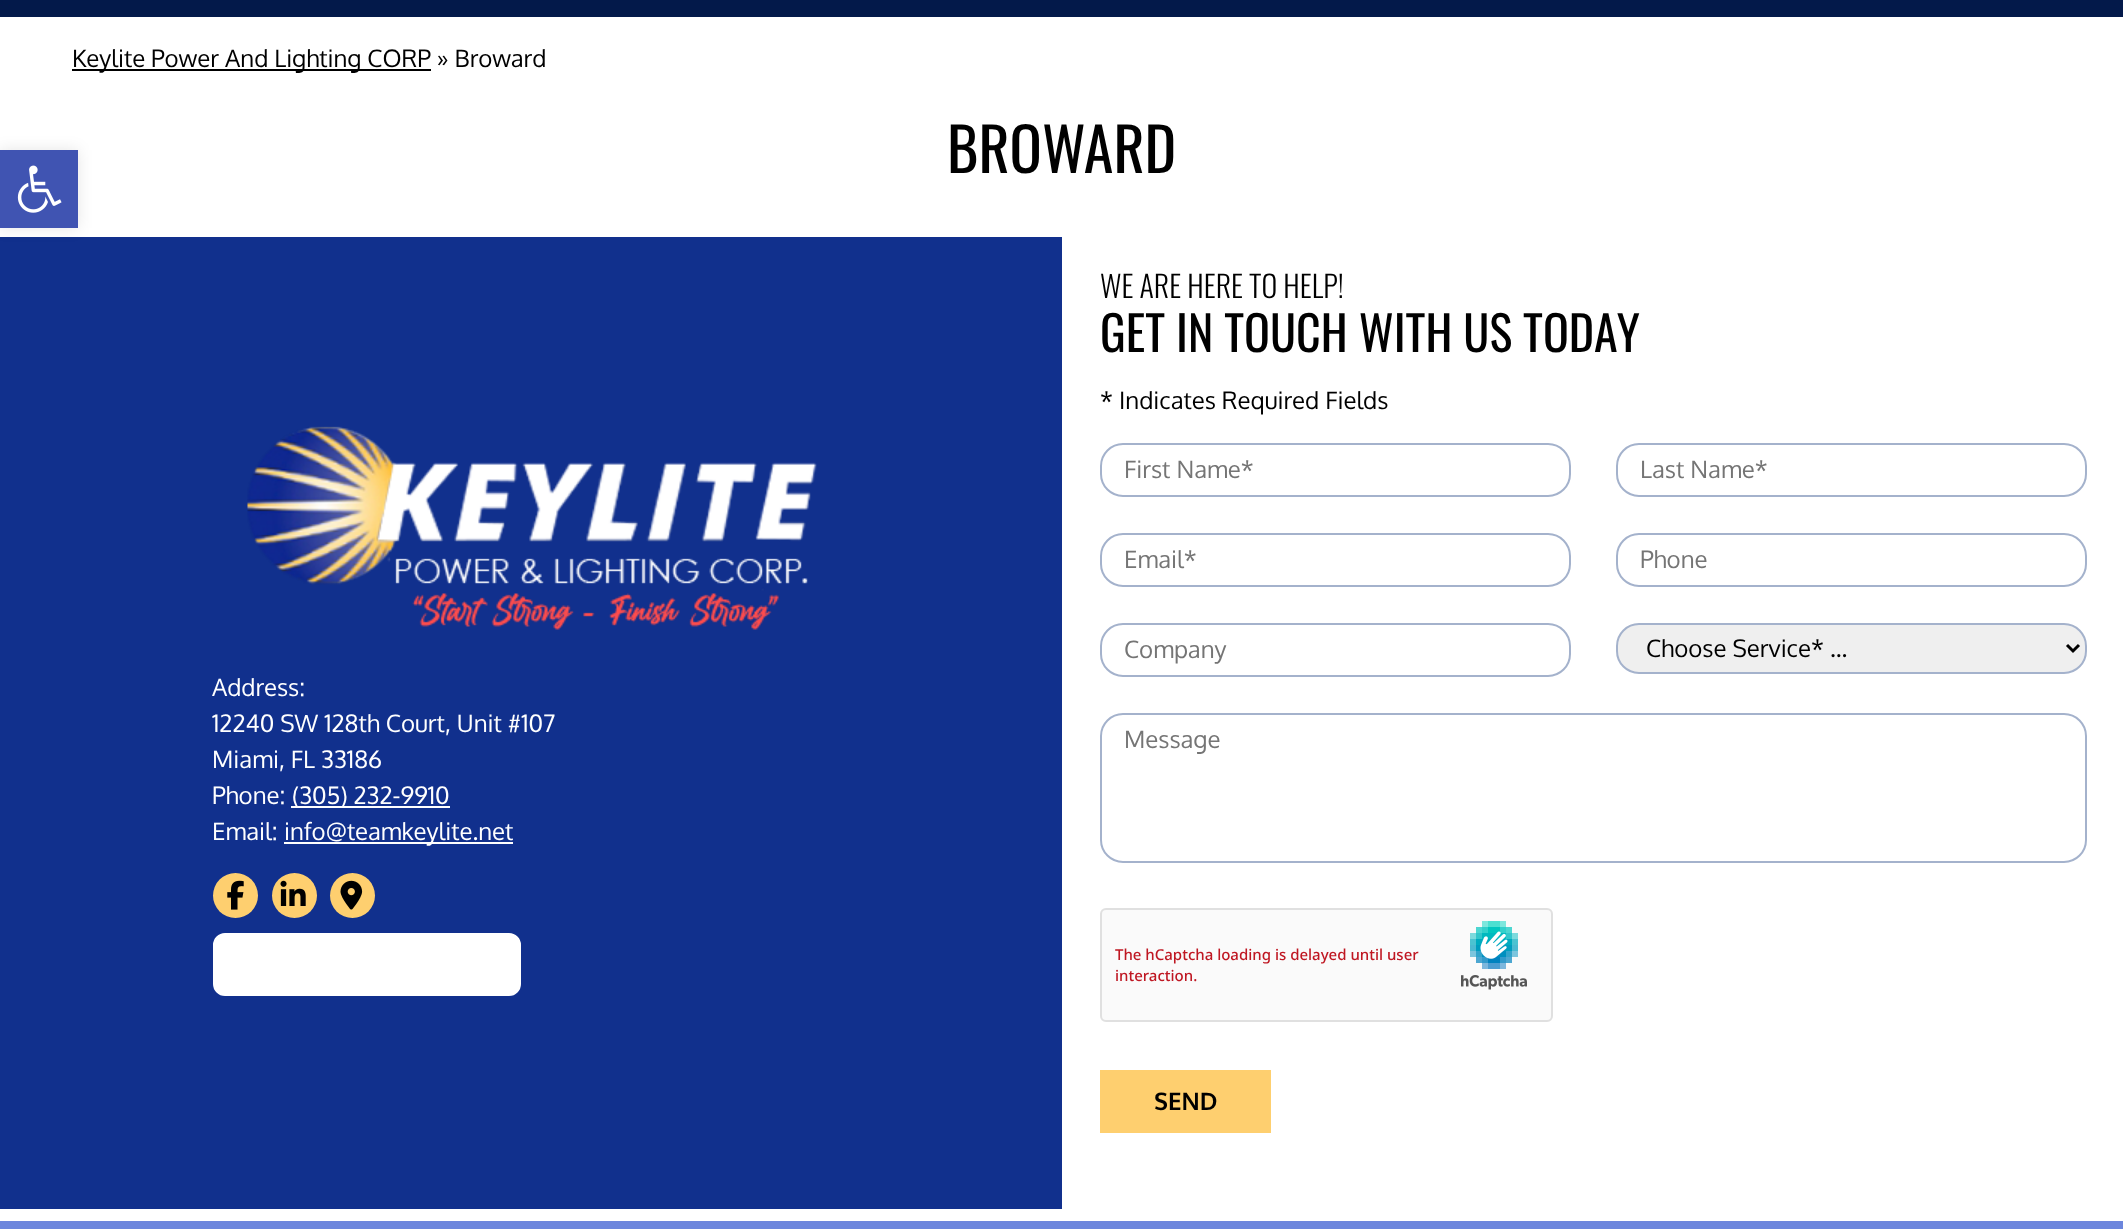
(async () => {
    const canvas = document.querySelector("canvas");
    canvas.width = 2123;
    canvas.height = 1229;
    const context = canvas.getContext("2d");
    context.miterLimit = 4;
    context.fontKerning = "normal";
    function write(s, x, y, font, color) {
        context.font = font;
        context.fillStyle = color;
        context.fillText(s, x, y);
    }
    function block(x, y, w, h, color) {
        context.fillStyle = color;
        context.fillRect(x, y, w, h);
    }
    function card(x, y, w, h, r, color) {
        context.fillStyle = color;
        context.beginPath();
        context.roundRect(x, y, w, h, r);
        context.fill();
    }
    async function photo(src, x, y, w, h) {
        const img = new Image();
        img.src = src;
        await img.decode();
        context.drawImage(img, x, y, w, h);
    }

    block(0, 0, 2123, 1229, "rgb(255, 255, 255)");
    block(0, 0, 2123, 17, "rgb(3, 25, 74)");
    block(72, 69, 359, 2, "rgb(0, 0, 0)");
    write("Keylite Power And Lighting CORP » Broward", 72, 67, "24px Oxygen", "rgb(0, 0, 0)");
    block(0, 237, 1062, 972, "rgb(17, 48, 141)");
    context.fillStyle = "rgba(0, 0, 0, 0.1)";
    context.filter = "blur(7.5px)";
    context.beginPath();
    context.rect(0, 150, 78, 78);
    context.fill();
    context.filter = "none";
    block(0, 150, 78, 78, "rgb(64, 84, 178)");
    await photo("media/1.png", 17, 165, 45, 48);
    write("BROWARD", 947, 173, "60px Oswald", "rgb(0, 0, 0)");
    await photo("media/2.png", 247, 426, 570, 204);
    write("Address:", 212, 696, "24px Oxygen", "rgb(255, 255, 255)");
    write("12240 SW 128th Court, Unit #107", 212, 732, "24px Oxygen", "rgb(255, 255, 255)");
    write("Miami, FL 33186", 212, 768, "24px Oxygen", "rgb(255, 255, 255)");
    write("Phone:", 212, 804, "24px Oxygen", "rgb(255, 255, 255)");
    block(291, 806, 159, 2, "rgb(255, 255, 255)");
    write("(305) 232-9910", 292, 804, "24px Oxygen", "rgb(255, 255, 255)");
    write("Email:", 212, 840, "24px Oxygen", "rgb(255, 255, 255)");
    block(284, 842, 229, 2, "rgb(255, 255, 255)");
    write("info@teamkeylite.net", 284, 840, "24px Oxygen", "rgb(255, 255, 255)");
    context.fillStyle = "rgb(254, 207, 111)";
    context.beginPath();
    context.arc(235.5, 895.5, 22.5, 0, Math.PI * 2);
    context.fill();
    await photo("media/3.png", 227, 880, 17, 30);
    context.beginPath();
    context.arc(294.5, 895.5, 22.5, 0, Math.PI * 2);
    context.fill();
    await photo("media/4.png", 280, 880, 26, 26);
    context.beginPath();
    context.arc(352.5, 895.5, 22.5, 0, Math.PI * 2);
    context.fill();
    await photo("media/5.png", 340, 880, 23, 30);
    context.fillStyle = "rgb(255, 255, 255)";
    context.beginPath();
    context.roundRect(214, 934, 306, 61, 11);
    context.fill();
    context.strokeStyle = "rgb(255, 255, 255)";
    context.lineWidth = 2;
    context.stroke();
    write("WE ARE HERE TO HELP!", 1100, 298, "300 30px Oswald", "rgb(0, 0, 0)");
    write("GET IN TOUCH WITH US TODAY", 1100, 352, "48px Oswald", "rgb(0, 0, 0)");
    write("* Indicates Required Fields", 1100, 409, "24px Oxygen", "rgb(0, 0, 0)");
    context.beginPath();
    context.roundRect(1101, 444, 469, 52, 22);
    context.strokeStyle = "rgb(164, 178, 204)";
    context.stroke();
    write("First Name*", 1124, 478, "24px Oxygen", "rgb(117, 117, 117)");
    context.beginPath();
    context.roundRect(1617, 444, 469, 52, 22);
    context.stroke();
    write("Last Name*", 1640, 478, "24px Oxygen", "rgb(117, 117, 117)");
    context.beginPath();
    context.roundRect(1101, 534, 469, 52, 22);
    context.stroke();
    write("Email*", 1124, 568, "24px Oxygen", "rgb(117, 117, 117)");
    context.beginPath();
    context.roundRect(1617, 534, 469, 52, 22);
    context.stroke();
    write("Phone", 1640, 568, "24px Oxygen", "rgb(117, 117, 117)");
    context.beginPath();
    context.roundRect(1101, 624, 469, 52, 22);
    context.stroke();
    write("Company", 1124, 658, "24px Oxygen", "rgb(117, 117, 117)");
    context.fillStyle = "rgb(239, 239, 239)";
    context.beginPath();
    context.roundRect(1617, 624, 469, 49, 22);
    context.fill();
    context.stroke();
    context.beginPath();
    context.moveTo(2067, 645);
    context.lineTo(2073, 651);
    context.lineTo(2079, 645);
    context.strokeStyle = "rgb(0, 0, 0)";
    context.lineWidth = 3;
    context.stroke();
    write("Choose Service* ...", 1646, 657, "24px Oxygen", "rgb(0, 0, 0)");
    context.beginPath();
    context.roundRect(1101, 714, 985, 148, 22);
    context.strokeStyle = "rgb(164, 178, 204)";
    context.lineWidth = 2;
    context.stroke();
    write("Message", 1124, 748, "24px Oxygen", "rgb(117, 117, 117)");
    card(1100, 908, 453, 114, 6, "rgb(250, 250, 250)");
    await photo("media/6.png", 1461, 921, 66, 69);
    context.beginPath();
    context.roundRect(1101, 909, 451, 112, 5);
    context.strokeStyle = "rgb(224, 224, 224)";
    context.stroke();
    write("The hCaptcha loading is delayed until user", 1115, 960, "500 15px Noto Sans", "rgb(191, 23, 34)");
    write("interaction.", 1115, 981, "500 15px Noto Sans", "rgb(191, 23, 34)");
    block(1100, 1070, 171, 63, "rgb(254, 207, 111)");
    write("SEND", 1154, 1110, "bold 24px Oxygen", "rgb(0, 0, 0)");
    block(0, 1221, 2123, 8, "rgb(108, 134, 221)");
})();
